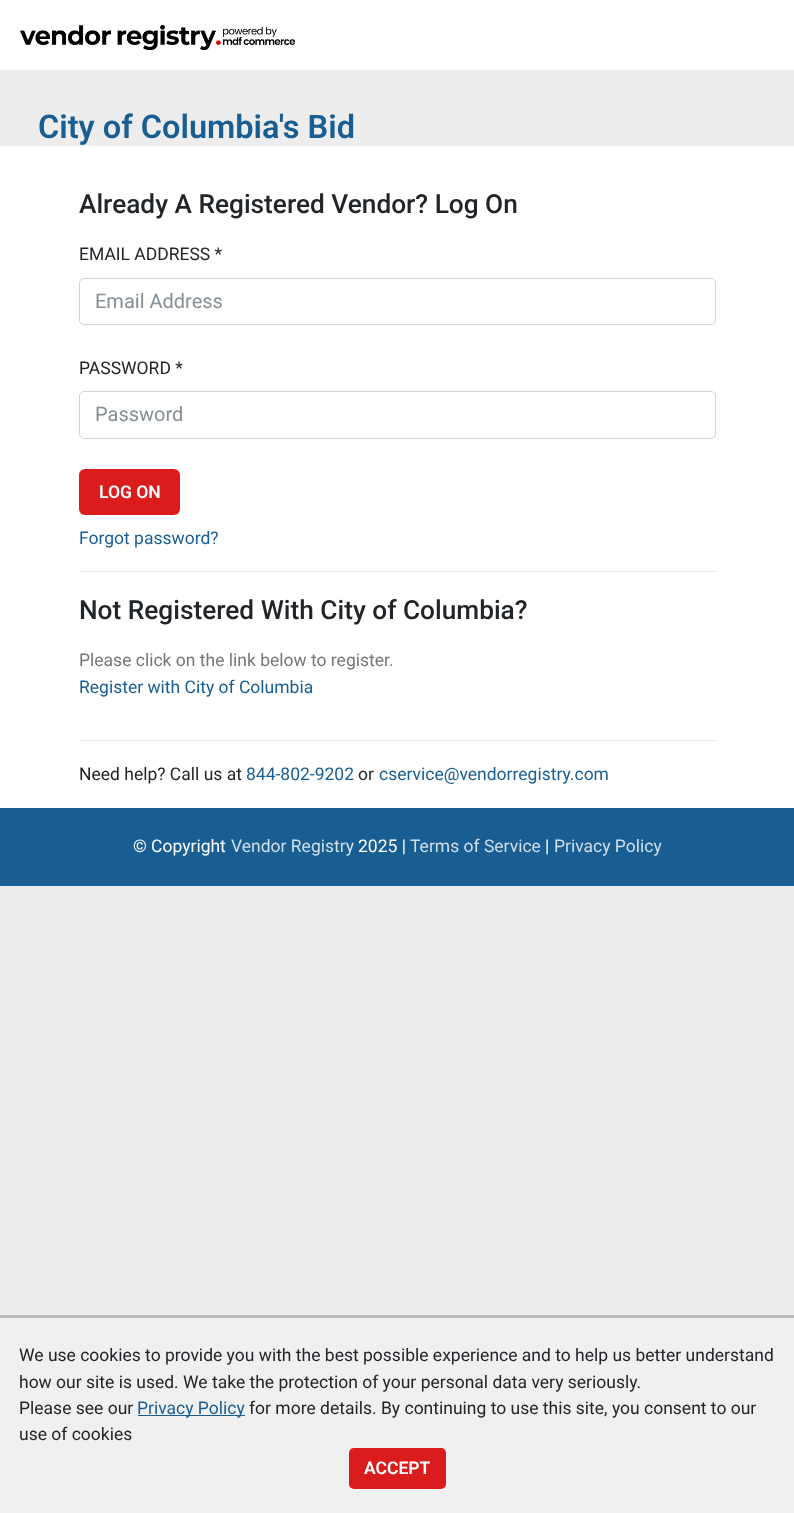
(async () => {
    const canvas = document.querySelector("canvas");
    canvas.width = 794;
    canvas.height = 1513;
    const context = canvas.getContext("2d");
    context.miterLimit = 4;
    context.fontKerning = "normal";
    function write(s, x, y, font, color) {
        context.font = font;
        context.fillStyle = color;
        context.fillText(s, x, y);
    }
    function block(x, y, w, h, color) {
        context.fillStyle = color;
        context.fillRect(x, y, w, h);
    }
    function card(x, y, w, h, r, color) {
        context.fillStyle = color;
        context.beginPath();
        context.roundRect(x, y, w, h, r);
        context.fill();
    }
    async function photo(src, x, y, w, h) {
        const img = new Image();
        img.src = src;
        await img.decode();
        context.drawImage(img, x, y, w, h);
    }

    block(0, 0, 794, 1513, "rgb(237, 237, 237)");
    block(0, 0, 794, 70, "rgb(255, 255, 255)");
    await photo("media/1.png", 20, 25, 275, 25);
    write("City of Columbia's Bid", 38, 138, "600 32.5px Roboto", "rgb(25, 94, 147)");
    block(0, 146, 794, 662, "rgb(255, 255, 255)");
    write("Already A Registered Vendor? Log On", 79, 213, "500 26.25px Roboto", "rgb(33, 37, 41)");
    write("EMAIL ADDRESS *", 79, 260, "17.5px Roboto", "rgb(33, 37, 41)");
    context.beginPath();
    context.roundRect(79.5, 278.5, 636, 46, 4.5);
    context.strokeStyle = "rgb(206, 212, 218)";
    context.stroke();
    write("Email Address", 95, 308, "20px Roboto", "rgb(134, 142, 150)");
    write("PASSWORD *", 79, 374, "17.5px Roboto", "rgb(33, 37, 41)");
    context.beginPath();
    context.roundRect(79.5, 391.5, 636, 47, 4.5);
    context.stroke();
    write("Password", 95, 421, "20px Roboto", "rgb(134, 142, 150)");
    card(79, 469, 101, 46, 6, "rgb(218, 29, 28)");
    write("LOG ON", 99, 498, "600 17.5px Roboto", "rgb(255, 255, 255)");
    write("Forgot password?", 79, 544, "17.5px Roboto", "rgb(25, 94, 147)");
    block(79, 571, 637, 1, "rgb(230, 230, 230)");
    write("Not Registered With City of Columbia?", 79, 619, "500 26.25px Roboto", "rgb(33, 37, 41)");
    write("Please click on the link below to register.", 79, 666, "17.5px Roboto", "rgb(118, 118, 118)");
    write("Register with City of Columbia", 79, 693, "17.5px Roboto", "rgb(25, 94, 147)");
    block(79, 740, 637, 1, "rgb(230, 230, 230)");
    write("Need help? Call us at", 79, 780, "17.5px Roboto", "rgb(33, 37, 41)");
    write("844-802-9202", 246, 780, "17.5px Roboto", "rgb(25, 94, 147)");
    write("or", 358, 780, "17.5px Roboto", "rgb(33, 37, 41)");
    write("cservice@vendorregistry.com", 379, 780, "17.5px Roboto", "rgb(25, 94, 147)");
    block(0, 808, 794, 78, "rgb(25, 94, 147)");
    write("© Copyright", 133, 852, "17.5px Roboto", "rgb(255, 255, 255)");
    write("Vendor Registry", 231, 852, "17.5px Roboto", "rgb(209, 223, 233)");
    write("2025 |", 358, 852, "17.5px Roboto", "rgb(255, 255, 255)");
    write("Terms of Service", 410, 852, "17.5px Roboto", "rgb(209, 223, 233)");
    write("|", 545, 852, "17.5px Roboto", "rgb(255, 255, 255)");
    write("Privacy Policy", 554, 852, "17.5px Roboto", "rgb(209, 223, 233)");
    block(0, 1318, 794, 195, "rgb(240, 240, 240)");
    block(0, 1315, 794, 3, "rgb(187, 187, 187)");
    write("We use cookies to provide you with the best possible experience and to help us better understand", 19, 1361, "17.5px Roboto", "rgb(33, 37, 41)");
    write("how our site is used. We take the protection of your personal data very seriously.", 19, 1388, "17.5px Roboto", "rgb(33, 37, 41)");
    write("Please see our", 19, 1414, "17.5px Roboto", "rgb(33, 37, 41)");
    block(138, 1415, 107, 1, "rgb(25, 94, 147)");
    write("Privacy Policy", 137, 1414, "17.5px Roboto", "rgb(25, 94, 147)");
    write("for more details. By continuing to use this site, you consent to our", 249, 1414, "17.5px Roboto", "rgb(33, 37, 41)");
    write("use of cookies", 19, 1440, "17.5px Roboto", "rgb(33, 37, 41)");
    card(349, 1448, 97, 41, 5, "rgb(218, 29, 28)");
    write("ACCEPT", 364, 1474, "600 17.5px Roboto", "rgb(255, 255, 255)");
})();
